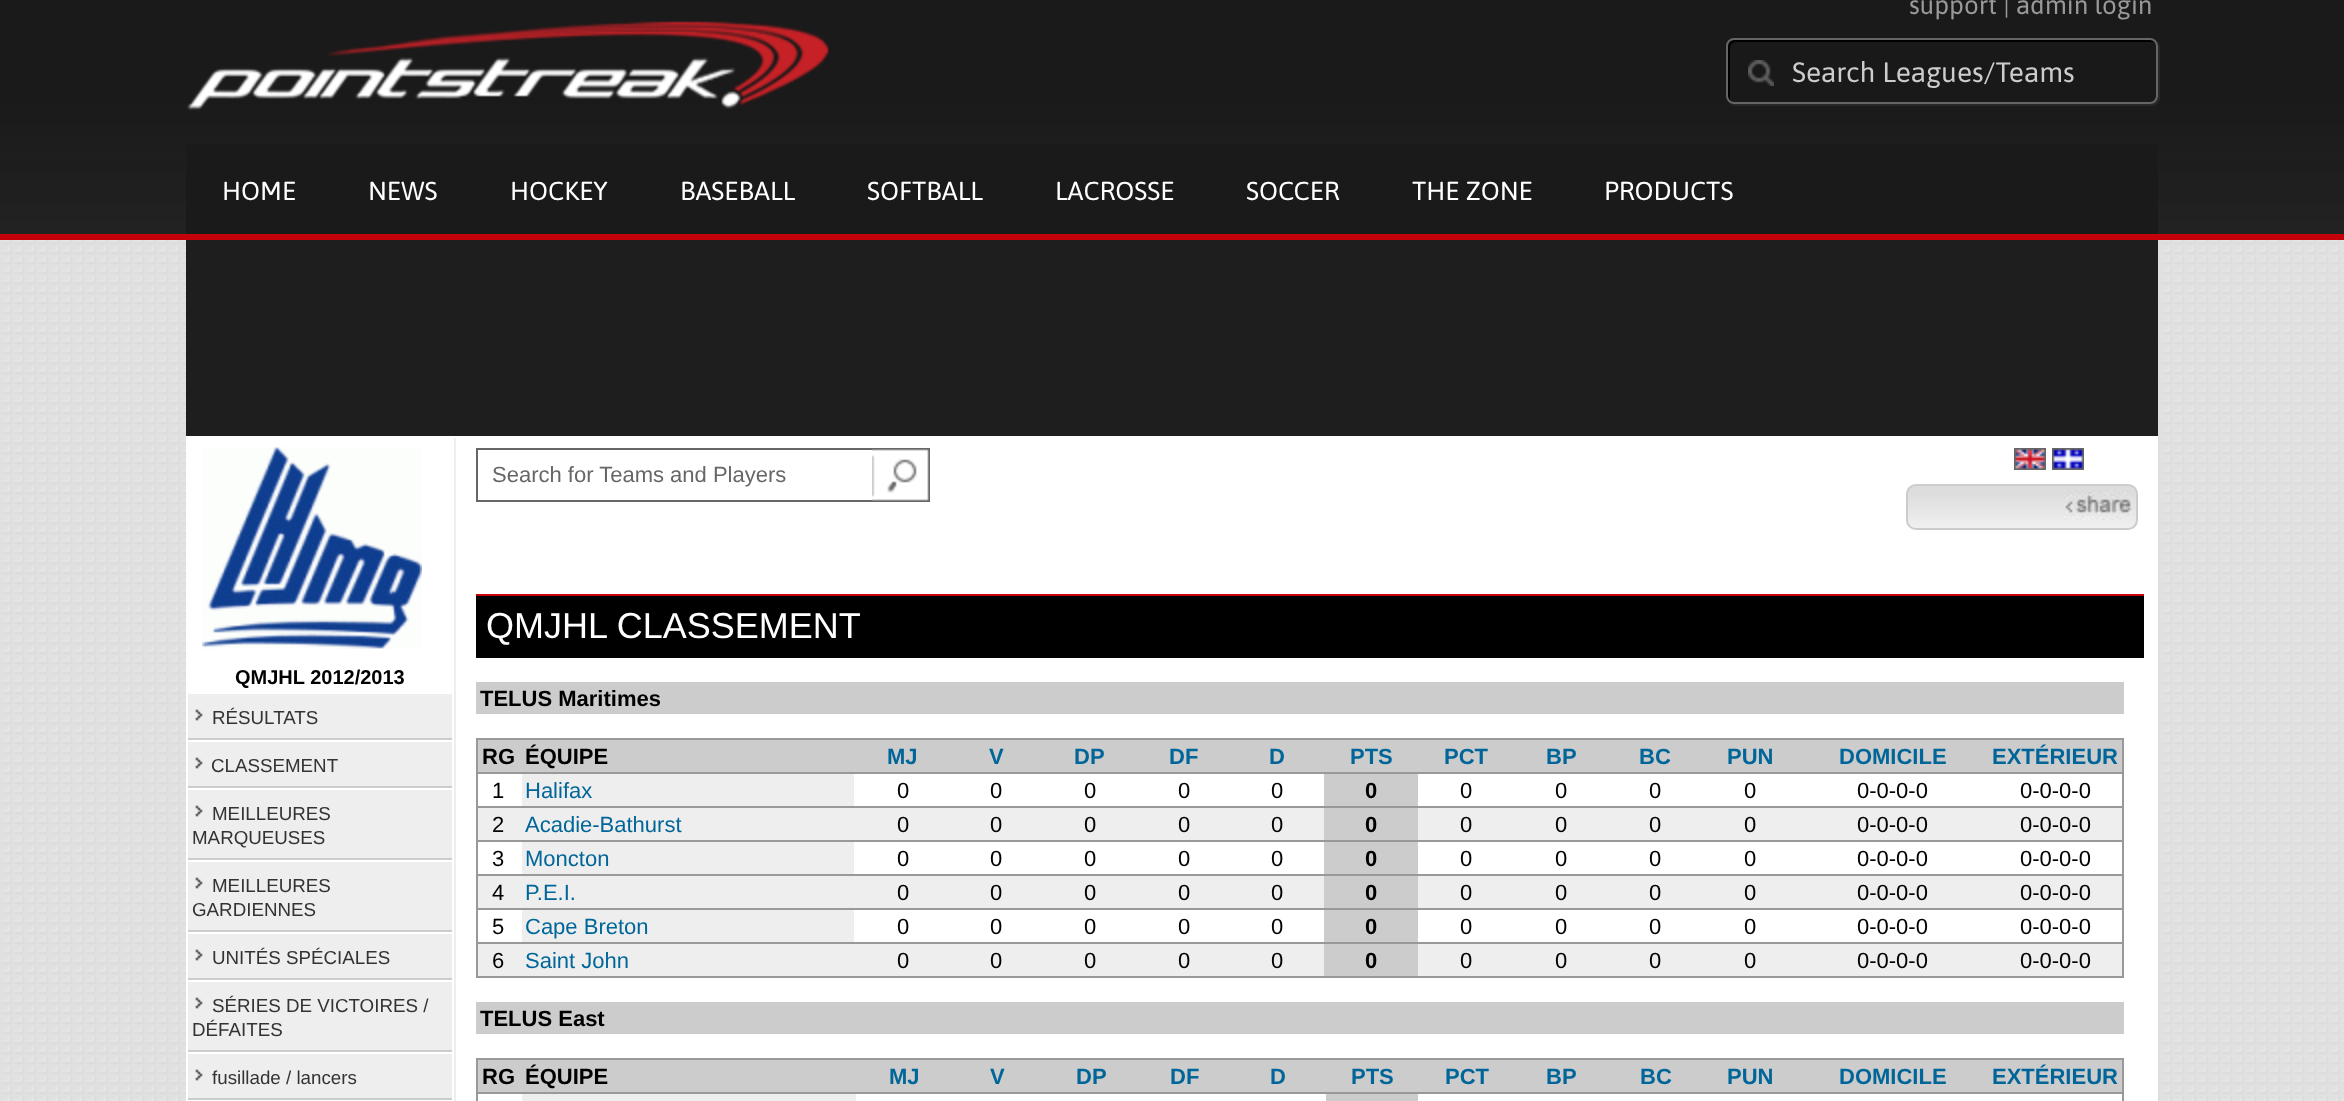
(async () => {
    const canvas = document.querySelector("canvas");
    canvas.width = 2344;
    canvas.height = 1101;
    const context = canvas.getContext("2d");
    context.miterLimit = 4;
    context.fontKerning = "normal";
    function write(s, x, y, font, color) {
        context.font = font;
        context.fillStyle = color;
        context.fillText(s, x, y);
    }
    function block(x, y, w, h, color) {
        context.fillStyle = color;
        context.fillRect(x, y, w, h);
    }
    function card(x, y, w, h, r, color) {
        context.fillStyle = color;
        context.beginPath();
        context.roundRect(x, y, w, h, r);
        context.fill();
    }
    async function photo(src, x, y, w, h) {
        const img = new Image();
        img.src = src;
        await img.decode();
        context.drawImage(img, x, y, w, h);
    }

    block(0, 0, 2344, 1101, "rgb(255, 255, 255)");
    await photo("media/1.png", 0, 240, 2344, 861);
    await photo("media/2.png", 0, 0, 2344, 234);
    block(0, 234, 2344, 6, "rgb(198, 0, 10)");
    await photo("media/3.png", 187, 21, 642, 90);
    write("support | admin login", 1909, 14, "26px Asap", "rgb(153, 153, 153)");
    context.fillStyle = "rgb(39, 40, 39)";
    context.beginPath();
    context.moveTo(1729, 103);
    context.bezierCurveTo(1731, 105, 1733, 106, 1736, 106);
    context.lineTo(2152, 106);
    context.bezierCurveTo(2156, 106, 2160, 102, 2160, 98);
    context.lineTo(2160, 48);
    context.bezierCurveTo(2160, 45, 2159, 43, 2157, 41);
    context.bezierCurveTo(2157, 43, 2158, 44, 2158, 46);
    context.lineTo(2158, 96);
    context.bezierCurveTo(2158, 100, 2154, 104, 2150, 104);
    context.lineTo(1734, 104);
    context.bezierCurveTo(1732, 104, 1731, 103, 1729, 103);
    context.closePath();
    context.fill();
    card(1726, 38, 432, 66, 8, "rgb(25, 25, 25)");
    await photo("media/4.png", 1748, 60, 26, 26);
    context.fillStyle = "rgb(0, 0, 0)";
    context.beginPath();
    context.moveTo(1736, 42);
    context.lineTo(2152, 42);
    context.bezierCurveTo(2153, 42, 2154, 42, 2155, 43);
    context.bezierCurveTo(2154, 41, 2152, 40, 2150, 40);
    context.lineTo(1734, 40);
    context.bezierCurveTo(1731, 40, 1728, 43, 1728, 46);
    context.lineTo(1728, 96);
    context.bezierCurveTo(1728, 98, 1729, 100, 1731, 101);
    context.bezierCurveTo(1730, 100, 1730, 99, 1730, 98);
    context.lineTo(1730, 48);
    context.bezierCurveTo(1730, 45, 1733, 42, 1736, 42);
    context.closePath();
    context.fill();
    context.beginPath();
    context.roundRect(1727, 39, 430, 64, 7);
    context.strokeStyle = "rgb(102, 102, 102)";
    context.lineWidth = 2;
    context.stroke();
    write("Search Leagues/Teams", 1792, 82, "28px Asap", "rgb(204, 204, 204)");
    block(186, 144, 1972, 90, "rgb(26, 26, 26)");
    write("HOME", 222, 200, "26px Asap", "rgb(255, 255, 255)");
    write("NEWS", 368, 200, "26px Asap", "rgb(255, 255, 255)");
    write("HOCKEY", 510, 200, "26px Asap", "rgb(255, 255, 255)");
    write("BASEBALL", 680, 200, "26px Asap", "rgb(255, 255, 255)");
    write("SOFTBALL", 867, 200, "26px Asap", "rgb(255, 255, 255)");
    write("LACROSSE", 1055, 200, "26px Asap", "rgb(255, 255, 255)");
    write("SOCCER", 1246, 200, "26px Asap", "rgb(255, 255, 255)");
    write("THE ZONE", 1412, 200, "26px Asap", "rgb(255, 255, 255)");
    write("PRODUCTS", 1604, 200, "26px Asap", "rgb(255, 255, 255)");
    block(186, 240, 1972, 196, "rgb(30, 30, 30)");
    block(186, 436, 1972, 665, "rgb(255, 255, 255)");
    block(454, 438, 2, 663, "rgb(238, 238, 238)");
    await photo("media/5.png", 202, 447, 220, 202);
    write("QMJHL 2012/2013", 235, 684, "bold 20px Liberation Sans", "rgb(0, 0, 0)");
    block(188, 694, 264, 44, "rgb(238, 238, 238)");
    block(188, 738, 264, 2, "rgb(204, 204, 204)");
    await photo("media/6.png", 195, 709, 8, 12);
    write("RÉSULTATS", 212, 724, "18.75px Liberation Sans", "rgb(51, 51, 51)");
    block(188, 742, 264, 44, "rgb(238, 238, 238)");
    block(188, 786, 264, 2, "rgb(204, 204, 204)");
    await photo("media/6.png", 195, 757, 8, 12);
    write("CLASSEMENT", 211, 772, "18.75px Liberation Sans", "rgb(51, 51, 51)");
    block(188, 790, 264, 68, "rgb(238, 238, 238)");
    block(188, 858, 264, 2, "rgb(204, 204, 204)");
    await photo("media/6.png", 195, 805, 8, 12);
    write("MEILLEURES", 212, 820, "18.75px Liberation Sans", "rgb(51, 51, 51)");
    write("MARQUEUSES", 192, 844, "18.75px Liberation Sans", "rgb(51, 51, 51)");
    block(188, 862, 264, 68, "rgb(238, 238, 238)");
    block(188, 930, 264, 2, "rgb(204, 204, 204)");
    await photo("media/6.png", 195, 877, 8, 12);
    write("MEILLEURES", 212, 892, "18.75px Liberation Sans", "rgb(51, 51, 51)");
    write("GARDIENNES", 192, 916, "18.75px Liberation Sans", "rgb(51, 51, 51)");
    block(188, 934, 264, 44, "rgb(238, 238, 238)");
    block(188, 978, 264, 2, "rgb(204, 204, 204)");
    await photo("media/6.png", 195, 949, 8, 12);
    write("UNITÉS SPÉCIALES", 212, 964, "18.75px Liberation Sans", "rgb(51, 51, 51)");
    block(188, 982, 264, 68, "rgb(238, 238, 238)");
    block(188, 1050, 264, 2, "rgb(204, 204, 204)");
    await photo("media/6.png", 195, 997, 8, 12);
    write("SÉRIES DE VICTOIRES /", 212, 1012, "18.75px Liberation Sans", "rgb(51, 51, 51)");
    write("DÉFAITES", 192, 1036, "18.75px Liberation Sans", "rgb(51, 51, 51)");
    block(188, 1054, 264, 44, "rgb(238, 238, 238)");
    block(188, 1098, 264, 2, "rgb(204, 204, 204)");
    await photo("media/6.png", 195, 1069, 8, 12);
    write("fusillade / lancers", 212, 1084, "18.75px Liberation Sans", "rgb(51, 51, 51)");
    await photo("media/7.png", 2014, 448, 32, 22);
    await photo("media/8.png", 2052, 448, 32, 22);
    context.strokeRect(477, 449, 396, 52);
    write("Search for Teams and Players", 492, 482, "22px Liberation Sans", "rgb(102, 102, 102)");
    await photo("media/9.png", 872, 448, 58, 54);
    await photo("media/10.png", 1906, 486, 232, 44);
    context.beginPath();
    context.roundRect(1907, 485, 230, 44, 9);
    context.strokeStyle = "rgb(204, 204, 204)";
    context.stroke();
    await photo("media/11.png", 2064, 490, 68, 30);
    block(476, 596, 1668, 62, "rgb(0, 0, 0)");
    block(476, 594, 1668, 2, "rgb(198, 0, 10)");
    write("QMJHL CLASSEMENT", 486, 638, "36px Liberation Sans", "rgb(255, 255, 255)");
    block(476, 682, 1648, 32, "rgb(204, 204, 204)");
    write("TELUS Maritimes", 480, 706, "bold 22px Liberation Sans", "rgb(0, 0, 0)");
    block(476, 738, 1648, 240, "rgb(153, 153, 153)");
    block(478, 740, 1644, 32, "rgb(204, 204, 204)");
    write("RG", 482, 764, "bold 22px Liberation Sans", "rgb(0, 0, 0)");
    write("ÉQUIPE", 525, 764, "bold 22px Liberation Sans", "rgb(0, 0, 0)");
    write("MJ", 887, 764, "bold 22px Liberation Sans", "rgb(0, 102, 153)");
    write("V", 989, 764, "bold 22px Liberation Sans", "rgb(0, 102, 153)");
    write("DP", 1074, 764, "bold 22px Liberation Sans", "rgb(0, 102, 153)");
    write("DF", 1169, 764, "bold 22px Liberation Sans", "rgb(0, 102, 153)");
    write("D", 1269, 764, "bold 22px Liberation Sans", "rgb(0, 102, 153)");
    write("PTS", 1350, 764, "bold 22px Liberation Sans", "rgb(0, 102, 153)");
    write("PCT", 1444, 764, "bold 22px Liberation Sans", "rgb(0, 102, 153)");
    write("BP", 1546, 764, "bold 22px Liberation Sans", "rgb(0, 102, 153)");
    write("BC", 1639, 764, "bold 22px Liberation Sans", "rgb(0, 102, 153)");
    write("PUN", 1727, 764, "bold 22px Liberation Sans", "rgb(0, 102, 153)");
    write("DOMICILE", 1839, 764, "bold 22px Liberation Sans", "rgb(0, 102, 153)");
    write("EXTÉRIEUR", 1992, 764, "bold 22px Liberation Sans", "rgb(0, 102, 153)");
    block(478, 774, 1644, 32, "rgb(255, 255, 255)");
    write("1", 492, 798, "22px Liberation Sans", "rgb(0, 0, 0)");
    block(522, 774, 332, 32, "rgb(238, 238, 238)");
    write("Halifax", 525, 798, "22px Liberation Sans", "rgb(0, 102, 153)");
    write("0", 897, 798, "22px Liberation Sans", "rgb(0, 0, 0)");
    write("0", 990, 798, "22px Liberation Sans", "rgb(0, 0, 0)");
    write("0", 1084, 798, "22px Liberation Sans", "rgb(0, 0, 0)");
    write("0", 1178, 798, "22px Liberation Sans", "rgb(0, 0, 0)");
    write("0", 1271, 798, "22px Liberation Sans", "rgb(0, 0, 0)");
    block(1324, 774, 94, 32, "rgb(204, 204, 204)");
    write("0", 1365, 798, "bold 22px Liberation Sans", "rgb(0, 0, 0)");
    write("0", 1460, 798, "22px Liberation Sans", "rgb(0, 0, 0)");
    write("0", 1555, 798, "22px Liberation Sans", "rgb(0, 0, 0)");
    write("0", 1649, 798, "22px Liberation Sans", "rgb(0, 0, 0)");
    write("0", 1744, 798, "22px Liberation Sans", "rgb(0, 0, 0)");
    write("0-0-0-0", 1857, 798, "22px Liberation Sans", "rgb(0, 0, 0)");
    write("0-0-0-0", 2020, 798, "22px Liberation Sans", "rgb(0, 0, 0)");
    block(478, 808, 1644, 32, "rgb(238, 238, 238)");
    write("2", 492, 832, "22px Liberation Sans", "rgb(0, 0, 0)");
    write("Acadie-Bathurst", 525, 832, "22px Liberation Sans", "rgb(0, 102, 153)");
    write("0", 897, 832, "22px Liberation Sans", "rgb(0, 0, 0)");
    write("0", 990, 832, "22px Liberation Sans", "rgb(0, 0, 0)");
    write("0", 1084, 832, "22px Liberation Sans", "rgb(0, 0, 0)");
    write("0", 1178, 832, "22px Liberation Sans", "rgb(0, 0, 0)");
    write("0", 1271, 832, "22px Liberation Sans", "rgb(0, 0, 0)");
    block(1324, 808, 94, 32, "rgb(204, 204, 204)");
    write("0", 1365, 832, "bold 22px Liberation Sans", "rgb(0, 0, 0)");
    write("0", 1460, 832, "22px Liberation Sans", "rgb(0, 0, 0)");
    write("0", 1555, 832, "22px Liberation Sans", "rgb(0, 0, 0)");
    write("0", 1649, 832, "22px Liberation Sans", "rgb(0, 0, 0)");
    write("0", 1744, 832, "22px Liberation Sans", "rgb(0, 0, 0)");
    write("0-0-0-0", 1857, 832, "22px Liberation Sans", "rgb(0, 0, 0)");
    write("0-0-0-0", 2020, 832, "22px Liberation Sans", "rgb(0, 0, 0)");
    block(478, 842, 1644, 32, "rgb(255, 255, 255)");
    write("3", 492, 866, "22px Liberation Sans", "rgb(0, 0, 0)");
    block(522, 842, 332, 32, "rgb(238, 238, 238)");
    write("Moncton", 525, 866, "22px Liberation Sans", "rgb(0, 102, 153)");
    write("0", 897, 866, "22px Liberation Sans", "rgb(0, 0, 0)");
    write("0", 990, 866, "22px Liberation Sans", "rgb(0, 0, 0)");
    write("0", 1084, 866, "22px Liberation Sans", "rgb(0, 0, 0)");
    write("0", 1178, 866, "22px Liberation Sans", "rgb(0, 0, 0)");
    write("0", 1271, 866, "22px Liberation Sans", "rgb(0, 0, 0)");
    block(1324, 842, 94, 32, "rgb(204, 204, 204)");
    write("0", 1365, 866, "bold 22px Liberation Sans", "rgb(0, 0, 0)");
    write("0", 1460, 866, "22px Liberation Sans", "rgb(0, 0, 0)");
    write("0", 1555, 866, "22px Liberation Sans", "rgb(0, 0, 0)");
    write("0", 1649, 866, "22px Liberation Sans", "rgb(0, 0, 0)");
    write("0", 1744, 866, "22px Liberation Sans", "rgb(0, 0, 0)");
    write("0-0-0-0", 1857, 866, "22px Liberation Sans", "rgb(0, 0, 0)");
    write("0-0-0-0", 2020, 866, "22px Liberation Sans", "rgb(0, 0, 0)");
    block(478, 876, 1644, 32, "rgb(238, 238, 238)");
    write("4", 492, 900, "22px Liberation Sans", "rgb(0, 0, 0)");
    write("P.E.I.", 525, 900, "22px Liberation Sans", "rgb(0, 102, 153)");
    write("0", 897, 900, "22px Liberation Sans", "rgb(0, 0, 0)");
    write("0", 990, 900, "22px Liberation Sans", "rgb(0, 0, 0)");
    write("0", 1084, 900, "22px Liberation Sans", "rgb(0, 0, 0)");
    write("0", 1178, 900, "22px Liberation Sans", "rgb(0, 0, 0)");
    write("0", 1271, 900, "22px Liberation Sans", "rgb(0, 0, 0)");
    block(1324, 876, 94, 32, "rgb(204, 204, 204)");
    write("0", 1365, 900, "bold 22px Liberation Sans", "rgb(0, 0, 0)");
    write("0", 1460, 900, "22px Liberation Sans", "rgb(0, 0, 0)");
    write("0", 1555, 900, "22px Liberation Sans", "rgb(0, 0, 0)");
    write("0", 1649, 900, "22px Liberation Sans", "rgb(0, 0, 0)");
    write("0", 1744, 900, "22px Liberation Sans", "rgb(0, 0, 0)");
    write("0-0-0-0", 1857, 900, "22px Liberation Sans", "rgb(0, 0, 0)");
    write("0-0-0-0", 2020, 900, "22px Liberation Sans", "rgb(0, 0, 0)");
    block(478, 910, 1644, 32, "rgb(255, 255, 255)");
    write("5", 492, 934, "22px Liberation Sans", "rgb(0, 0, 0)");
    block(522, 910, 332, 32, "rgb(238, 238, 238)");
    write("Cape Breton", 525, 934, "22px Liberation Sans", "rgb(0, 102, 153)");
    write("0", 897, 934, "22px Liberation Sans", "rgb(0, 0, 0)");
    write("0", 990, 934, "22px Liberation Sans", "rgb(0, 0, 0)");
    write("0", 1084, 934, "22px Liberation Sans", "rgb(0, 0, 0)");
    write("0", 1178, 934, "22px Liberation Sans", "rgb(0, 0, 0)");
    write("0", 1271, 934, "22px Liberation Sans", "rgb(0, 0, 0)");
    block(1324, 910, 94, 32, "rgb(204, 204, 204)");
    write("0", 1365, 934, "bold 22px Liberation Sans", "rgb(0, 0, 0)");
    write("0", 1460, 934, "22px Liberation Sans", "rgb(0, 0, 0)");
    write("0", 1555, 934, "22px Liberation Sans", "rgb(0, 0, 0)");
    write("0", 1649, 934, "22px Liberation Sans", "rgb(0, 0, 0)");
    write("0", 1744, 934, "22px Liberation Sans", "rgb(0, 0, 0)");
    write("0-0-0-0", 1857, 934, "22px Liberation Sans", "rgb(0, 0, 0)");
    write("0-0-0-0", 2020, 934, "22px Liberation Sans", "rgb(0, 0, 0)");
    block(478, 944, 1644, 32, "rgb(238, 238, 238)");
    write("6", 492, 968, "22px Liberation Sans", "rgb(0, 0, 0)");
    write("Saint John", 525, 968, "22px Liberation Sans", "rgb(0, 102, 153)");
    write("0", 897, 968, "22px Liberation Sans", "rgb(0, 0, 0)");
    write("0", 990, 968, "22px Liberation Sans", "rgb(0, 0, 0)");
    write("0", 1084, 968, "22px Liberation Sans", "rgb(0, 0, 0)");
    write("0", 1178, 968, "22px Liberation Sans", "rgb(0, 0, 0)");
    write("0", 1271, 968, "22px Liberation Sans", "rgb(0, 0, 0)");
    block(1324, 944, 94, 32, "rgb(204, 204, 204)");
    write("0", 1365, 968, "bold 22px Liberation Sans", "rgb(0, 0, 0)");
    write("0", 1460, 968, "22px Liberation Sans", "rgb(0, 0, 0)");
    write("0", 1555, 968, "22px Liberation Sans", "rgb(0, 0, 0)");
    write("0", 1649, 968, "22px Liberation Sans", "rgb(0, 0, 0)");
    write("0", 1744, 968, "22px Liberation Sans", "rgb(0, 0, 0)");
    write("0-0-0-0", 1857, 968, "22px Liberation Sans", "rgb(0, 0, 0)");
    write("0-0-0-0", 2020, 968, "22px Liberation Sans", "rgb(0, 0, 0)");
    block(476, 1002, 1648, 32, "rgb(204, 204, 204)");
    write("TELUS East", 480, 1026, "bold 22px Liberation Sans", "rgb(0, 0, 0)");
    block(476, 1058, 1648, 43, "rgb(153, 153, 153)");
    block(478, 1060, 1644, 32, "rgb(204, 204, 204)");
    write("RG", 482, 1084, "bold 22px Liberation Sans", "rgb(0, 0, 0)");
    write("ÉQUIPE", 525, 1084, "bold 22px Liberation Sans", "rgb(0, 0, 0)");
    write("MJ", 889, 1084, "bold 22px Liberation Sans", "rgb(0, 102, 153)");
    write("V", 990, 1084, "bold 22px Liberation Sans", "rgb(0, 102, 153)");
    write("DP", 1076, 1084, "bold 22px Liberation Sans", "rgb(0, 102, 153)");
    write("DF", 1170, 1084, "bold 22px Liberation Sans", "rgb(0, 102, 153)");
    write("D", 1270, 1084, "bold 22px Liberation Sans", "rgb(0, 102, 153)");
    write("PTS", 1351, 1084, "bold 22px Liberation Sans", "rgb(0, 102, 153)");
    write("PCT", 1445, 1084, "bold 22px Liberation Sans", "rgb(0, 102, 153)");
    write("BP", 1546, 1084, "bold 22px Liberation Sans", "rgb(0, 102, 153)");
    write("BC", 1640, 1084, "bold 22px Liberation Sans", "rgb(0, 102, 153)");
    write("PUN", 1727, 1084, "bold 22px Liberation Sans", "rgb(0, 102, 153)");
    write("DOMICILE", 1839, 1084, "bold 22px Liberation Sans", "rgb(0, 102, 153)");
    write("EXTÉRIEUR", 1992, 1084, "bold 22px Liberation Sans", "rgb(0, 102, 153)");
    block(478, 1094, 1644, 7, "rgb(255, 255, 255)");
    block(522, 1094, 334, 7, "rgb(238, 238, 238)");
    block(1326, 1094, 92, 7, "rgb(204, 204, 204)");
})();
